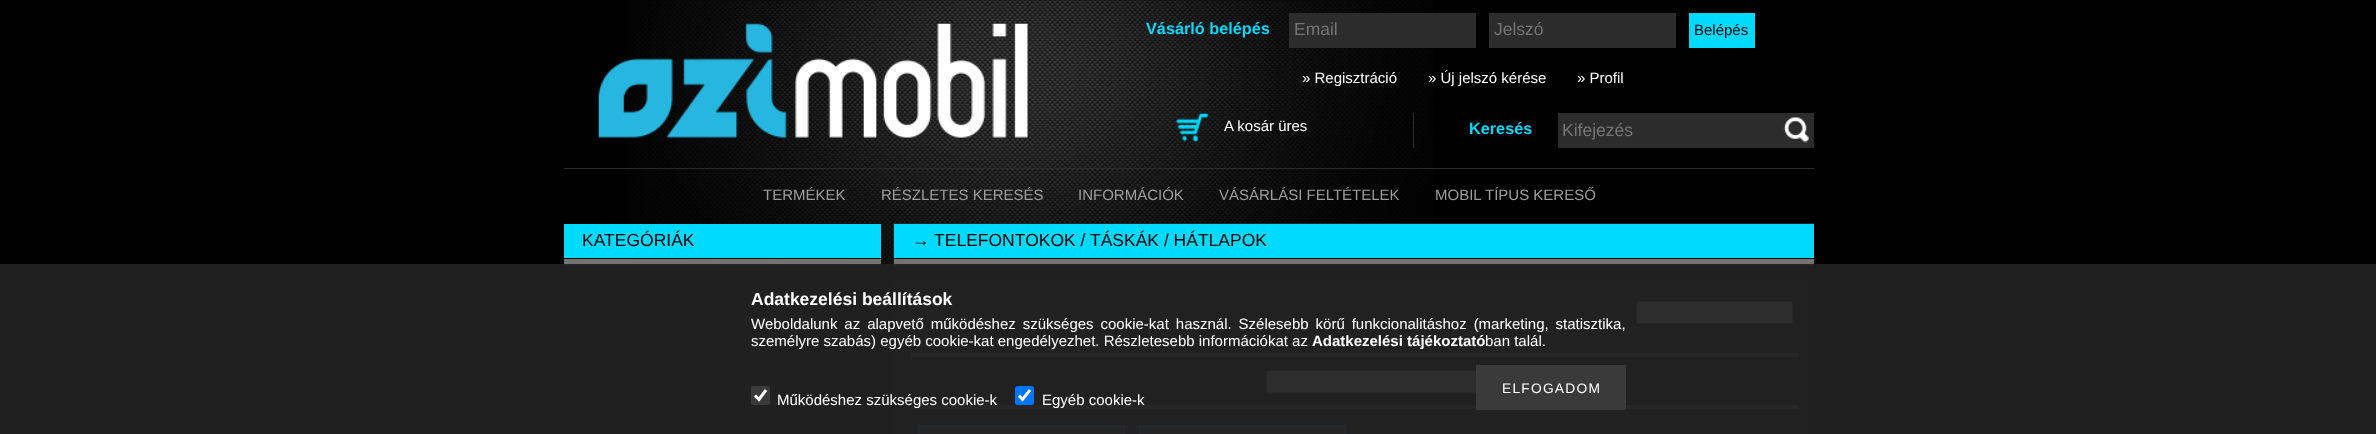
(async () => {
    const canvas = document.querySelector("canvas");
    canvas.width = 2376;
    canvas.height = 434;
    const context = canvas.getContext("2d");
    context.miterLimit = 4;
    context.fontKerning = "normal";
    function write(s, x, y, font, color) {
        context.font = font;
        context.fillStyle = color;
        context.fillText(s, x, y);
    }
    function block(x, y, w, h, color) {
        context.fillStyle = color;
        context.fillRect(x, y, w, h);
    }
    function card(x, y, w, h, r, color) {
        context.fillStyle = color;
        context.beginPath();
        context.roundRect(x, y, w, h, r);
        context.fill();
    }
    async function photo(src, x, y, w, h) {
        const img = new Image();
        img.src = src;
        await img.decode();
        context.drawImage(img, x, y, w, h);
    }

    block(0, 0, 2376, 434, "rgb(0, 0, 0)");
    await photo("media/1.png", 627, 0, 806, 350);
    await photo("media/2.png", 598, 23, 430, 115);
    write("Vásárló belépés", 1146, 34, "bold 16.25px Liberation Sans", "rgb(0, 218, 255)");
    block(1289, 13, 187, 35, "rgb(44, 44, 44)");
    write("Email", 1294, 35, "17.5px Liberation Sans", "rgb(117, 117, 117)");
    block(1489, 13, 187, 35, "rgb(44, 44, 44)");
    write("Jelszó", 1494, 35, "17.5px Liberation Sans", "rgb(117, 117, 117)");
    block(1689, 13, 66, 35, "rgb(0, 218, 255)");
    write("Belépés", 1694, 35, "15px Liberation Sans", "rgb(0, 0, 0)");
    write("» Regisztráció", 1302, 83, "15px Liberation Sans", "rgb(255, 255, 255)");
    write("» Új jelszó kérése", 1428, 83, "15px Liberation Sans", "rgb(255, 255, 255)");
    write("» Profil", 1577, 83, "15px Liberation Sans", "rgb(255, 255, 255)");
    block(1413, 113, 1, 35, "rgb(44, 44, 44)");
    await photo("media/3.png", 1176, 113, 33, 29);
    write("A kosár üres", 1224, 131, "15px Liberation Sans", "rgb(255, 255, 255)");
    write("Keresés", 1469, 134, "bold 16.25px Liberation Sans", "rgb(0, 218, 255)");
    block(1558, 113, 256, 35, "rgb(44, 44, 44)");
    write("Kifejezés", 1562, 136, "17.5px Liberation Sans", "rgb(117, 117, 117)");
    await photo("media/4.png", 1783, 116, 26, 27);
    block(564, 168, 1250, 1, "rgb(44, 44, 44)");
    write("TERMÉKEK", 763, 200, "15px Liberation Sans", "rgb(158, 158, 158)");
    write("RÉSZLETES KERESÉS", 881, 200, "15px Liberation Sans", "rgb(158, 158, 158)");
    write("INFORMÁCIÓK", 1078, 200, "15px Liberation Sans", "rgb(158, 158, 158)");
    write("VÁSÁRLÁSI FELTÉTELEK", 1219, 200, "15px Liberation Sans", "rgb(158, 158, 158)");
    write("MOBIL TÍPUS KERESŐ", 1435, 200, "15px Liberation Sans", "rgb(158, 158, 158)");
    block(893, 223, 921, 211, "rgb(36, 36, 36)");
    block(564, 224, 317, 34, "rgb(0, 218, 255)");
    write("KATEGÓRIÁK", 582, 246, "17.5px Liberation Sans", "rgb(0, 0, 0)");
    block(564, 259, 317, 7, "rgb(115, 115, 115)");
    block(564, 291, 317, 32, "rgb(15, 15, 15)");
    block(564, 324, 317, 31, "rgb(15, 15, 15)");
    block(564, 356, 317, 32, "rgb(15, 15, 15)");
    block(564, 389, 317, 45, "rgb(15, 15, 15)");
    block(894, 224, 920, 34, "rgb(0, 218, 255)");
    write("→ TELEFONTOKOK / TÁSKÁK / HÁTLAPOK", 912, 246, "17.5px Liberation Sans", "rgb(0, 0, 0)");
    block(894, 258, 920, 1, "rgb(0, 0, 0)");
    block(894, 259, 920, 7, "rgb(115, 115, 115)");
    block(894, 266, 920, 15, "rgb(0, 0, 0)");
    context.fillStyle = "rgb(239, 239, 239)";
    context.beginPath();
    context.roundRect(1636.5, 301.5, 156, 22, 2);
    context.fill();
    context.strokeStyle = "rgb(118, 118, 118)";
    context.stroke();
    block(911, 353, 888, 4, "rgb(115, 115, 115)");
    context.fillStyle = "rgb(255, 255, 255)";
    context.beginPath();
    context.roundRect(1266.5, 370.5, 258, 22, 2);
    context.fill();
    context.stroke();
    block(911, 405, 888, 4, "rgb(115, 115, 115)");
    context.strokeStyle = "rgb(0, 218, 255)";
    context.strokeRect(918.5, 425.5, 206, 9);
    block(919, 426, 205, 8, "rgb(95, 95, 95)");
    context.strokeRect(1139.5, 425.5, 206, 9);
    block(1140, 426, 205, 8, "rgb(95, 95, 95)");
    block(0, 264, 2376, 170, "rgba(34, 34, 34, 0.95)");
    write("Adatkezelési beállítások", 751, 305, "bold 17.5px Liberation Sans", "rgb(255, 255, 255)");
    context.wordSpacing = "2.75px";
    write("Weboldalunk az alapvető működéshez szükséges cookie-kat használ. Szélesebb körű funkcionalitáshoz (marketing, statisztika,", 751, 329, "15px Liberation Sans", "rgb(255, 255, 255)");
    context.wordSpacing = "0px";
    write("személyre szabás) egyéb cookie-kat engedélyezhet. Részletesebb információkat az", 751, 346, "15px Liberation Sans", "rgb(255, 255, 255)");
    write("Adatkezelési tájékoztató", 1312, 346, "bold 15px Liberation Sans", "rgb(255, 255, 255)");
    write("ban talál.", 1485, 346, "15px Liberation Sans", "rgb(255, 255, 255)");
    block(1476, 365, 150, 45, "rgb(58, 58, 58)");
    context.letterSpacing = "1.25px";
    write("ELFOGADOM", 1502, 393, "13.75px Liberation Sans", "rgb(255, 255, 255)");
    card(751, 386, 19, 19, 2.5, "rgba(118, 118, 118, 0.3)");
    context.beginPath();
    context.moveTo(755, 395.5);
    context.lineTo(759, 399.5);
    context.lineTo(766, 390);
    context.strokeStyle = "rgb(255, 255, 255)";
    context.lineWidth = 3;
    context.stroke();
    context.letterSpacing = "0px";
    write("Működéshez szükséges cookie-k", 777, 405, "15px Liberation Sans", "rgb(255, 255, 255)");
    card(1015, 386, 19, 19, 2.5, "rgb(0, 117, 255)");
    context.beginPath();
    context.moveTo(1019, 395.5);
    context.lineTo(1022.5, 399.5);
    context.lineTo(1030, 390);
    context.stroke();
    write("Egyéb cookie-k", 1042, 405, "15px Liberation Sans", "rgb(255, 255, 255)");
})();
